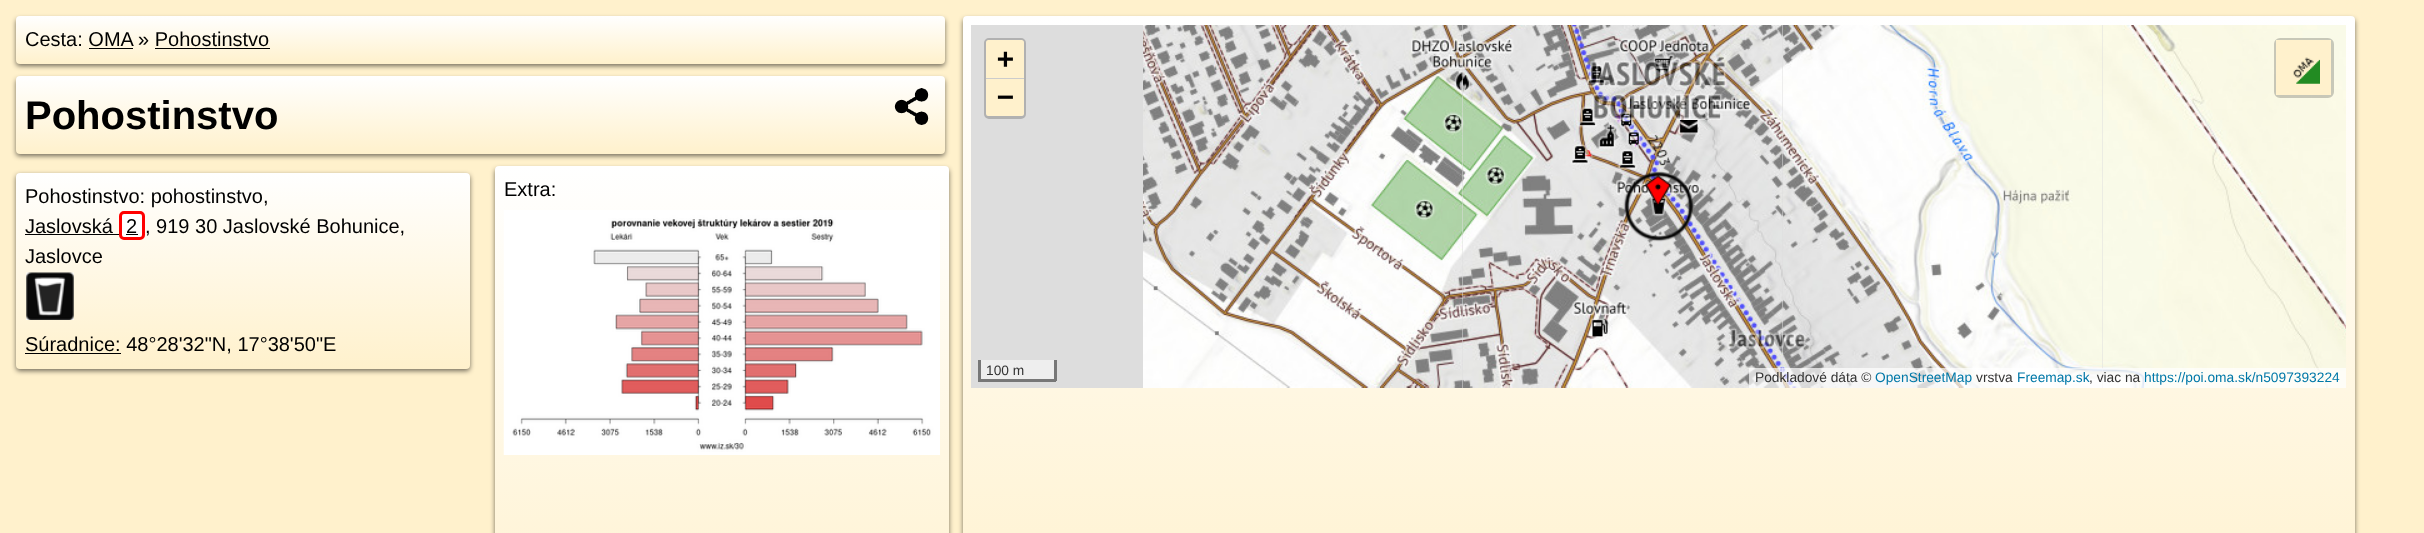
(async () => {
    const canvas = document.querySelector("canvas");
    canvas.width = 2424;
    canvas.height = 533;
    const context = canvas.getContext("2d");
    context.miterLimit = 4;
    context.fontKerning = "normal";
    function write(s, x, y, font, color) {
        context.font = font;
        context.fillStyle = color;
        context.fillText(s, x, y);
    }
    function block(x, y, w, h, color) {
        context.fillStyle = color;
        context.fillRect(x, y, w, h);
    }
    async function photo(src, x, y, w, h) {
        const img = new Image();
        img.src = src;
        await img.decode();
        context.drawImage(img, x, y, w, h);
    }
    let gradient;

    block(0, 0, 2424, 533, "rgb(255, 241, 204)");
    context.fillStyle = "rgba(0, 0, 0, 0.55)";
    context.filter = "blur(2.5px)";
    context.beginPath();
    context.roundRect(16, 19, 929, 47, 4);
    context.fill();
    context.filter = "none";
    gradient = context.createLinearGradient(481, 16, 481, 64);
    gradient.addColorStop(0, "rgb(255, 255, 255)");
    gradient.addColorStop(1, "rgb(255, 241, 204)");
    context.fillStyle = gradient;
    context.beginPath();
    context.roundRect(16, 16, 929, 48, 4);
    context.fill();
    write("Cesta: OMA", 25, 46, "20px Liberation Sans", "rgb(0, 0, 0)");
    write("» Pohostinstvo", 138, 46, "20px Liberation Sans", "rgb(0, 0, 0)");
    block(89, 48, 44, 1, "rgb(0, 0, 0)");
    block(155, 48, 115, 1, "rgb(0, 0, 0)");
    context.fillStyle = "rgba(0, 0, 0, 0.55)";
    context.filter = "blur(2.5px)";
    context.beginPath();
    context.roundRect(16, 79, 929, 77, 4);
    context.fill();
    context.filter = "none";
    gradient = context.createLinearGradient(481, 76, 481, 154);
    gradient.addColorStop(0, "rgb(255, 255, 255)");
    gradient.addColorStop(1, "rgb(255, 241, 204)");
    context.fillStyle = gradient;
    context.beginPath();
    context.roundRect(16, 76, 929, 78, 4);
    context.fill();
    write("Pohostinstvo", 25, 129, "bold 40px Liberation Sans", "rgb(0, 0, 0)");
    await photo("media/1.png", 894, 88, 35, 37);
    context.fillStyle = "rgba(0, 0, 0, 0.55)";
    context.filter = "blur(2.5px)";
    context.beginPath();
    context.roundRect(16, 175, 454, 196, 4);
    context.fill();
    context.filter = "none";
    gradient = context.createLinearGradient(243, 172, 243, 369);
    gradient.addColorStop(0, "rgb(255, 255, 255)");
    gradient.addColorStop(1, "rgb(255, 241, 204)");
    context.fillStyle = gradient;
    context.beginPath();
    context.roundRect(16, 173, 454, 196, 4);
    context.fill();
    write("Pohostinstvo: pohostinstvo,", 25, 203, "20px Liberation Sans", "rgb(0, 0, 0)");
    write("Jaslovská", 25, 233, "20px Liberation Sans", "rgb(0, 0, 0)");
    block(25, 234, 94, 1, "rgb(0, 0, 0)");
    context.fillStyle = "rgb(255, 255, 255)";
    context.beginPath();
    context.roundRect(120.5, 212.5, 23, 26, 3.5);
    context.fill();
    context.strokeStyle = "rgb(255, 0, 0)";
    context.lineWidth = 3;
    context.stroke();
    write("2", 126, 233, "20px Liberation Sans", "rgb(0, 0, 0)");
    block(126, 234, 12, 1, "rgb(0, 0, 0)");
    write(", 919 30 Jaslovské Bohunice,", 145, 233, "20px Liberation Sans", "rgb(0, 0, 0)");
    write("Jaslovce", 25, 263, "20px Liberation Sans", "rgb(0, 0, 0)");
    await photo("media/2.png", 26, 272, 48, 48);
    block(25, 353, 96, 1, "rgb(0, 0, 0)");
    write("Súradnice: 48°28'32\"N, 17°38'50\"E", 25, 351, "20px Liberation Sans", "rgb(0, 0, 0)");
    context.fillStyle = "rgba(0, 0, 0, 0.55)";
    context.filter = "blur(2.5px)";
    context.beginPath();
    context.roundRect(495, 169, 454, 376, 4);
    context.fill();
    context.filter = "none";
    gradient = context.createLinearGradient(722, 166, 722, 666);
    gradient.addColorStop(0, "rgb(255, 255, 255)");
    gradient.addColorStop(1, "rgb(255, 241, 204)");
    context.fillStyle = gradient;
    context.beginPath();
    context.roundRect(495, 166, 454, 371, 4);
    context.fill();
    write("Extra:", 504, 196, "20px Liberation Sans", "rgb(0, 0, 0)");
    await photo("media/3.png", 503, 210, 437, 245);
    context.fillStyle = "rgba(0, 0, 0, 0.55)";
    context.filter = "blur(2.5px)";
    context.beginPath();
    context.roundRect(963, 19, 1392, 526, 4);
    context.fill();
    context.filter = "none";
    gradient = context.createLinearGradient(1659, 16, 1659, 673);
    gradient.addColorStop(0, "rgb(255, 255, 255)");
    gradient.addColorStop(1, "rgb(255, 241, 204)");
    context.fillStyle = gradient;
    context.beginPath();
    context.roundRect(963, 16, 1392, 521, 4);
    context.fill();
    block(971, 25, 1132, 363, "rgb(221, 221, 221)");
    await photo("media/4.png", 1143, 25, 320, 95);
    await photo("media/5.png", 1463, 25, 320, 95);
    await photo("media/6.png", 1783, 25, 320, 95);
    await photo("media/7.png", 2103, 25, 243, 95);
    await photo("media/8.png", 1143, 120, 320, 268);
    await photo("media/9.png", 1463, 120, 320, 268);
    await photo("media/10.png", 1783, 120, 320, 268);
    await photo("media/11.png", 2103, 120, 243, 268);
    await photo("media/12.png", 1623, 171, 71, 71);
    await photo("media/13.png", 1645, 175, 27, 31);
    context.beginPath();
    context.roundRect(985.5, 39.5, 39, 78, 3.5);
    context.strokeStyle = "rgb(177, 177, 177)";
    context.stroke();
    context.fillStyle = "rgb(255, 241, 204)";
    context.beginPath();
    context.roundRect(986, 40, 38, 39, [2.5, 2.5, 0, 0]);
    context.fill();
    block(986, 78, 38, 1, "rgb(204, 204, 204)");
    write("+", 997, 68, "bold 28px DejaVu Sans Mono", "rgb(0, 0, 0)");
    context.fillStyle = "rgb(255, 241, 204)";
    context.beginPath();
    context.roundRect(986, 79, 38, 37, [0, 0, 2.5, 2.5]);
    context.fill();
    write("−", 997, 106, "bold 28px DejaVu Sans Mono", "rgb(0, 0, 0)");
    context.beginPath();
    context.roundRect(2275.5, 39.5, 57, 57, 4.5);
    context.strokeStyle = "rgba(0, 0, 0, 0.2)";
    context.stroke();
    block(2276, 40, 55, 55, "rgb(255, 241, 204)");
    await photo("media/14.png", 2293, 57, 27, 27);
    block(981, 360, 73, 19, "rgb(238, 238, 238)");
    block(1054, 360, 3, 21, "rgb(119, 119, 119)");
    block(978, 379, 78, 3, "rgb(119, 119, 119)");
    block(978, 360, 3, 21, "rgb(119, 119, 119)");
    write("100 m", 986, 375, "13.75px Liberation Sans", "rgb(51, 51, 51)");
    block(1749, 368, 597, 20, "rgba(255, 255, 255, 0.7)");
    write("Podkladové dáta ©", 1755, 382, "13.75px Liberation Sans", "rgb(51, 51, 51)");
    write("OpenStreetMap", 1875, 382, "13.75px Liberation Sans", "rgb(0, 120, 168)");
    write("vrstva", 1976, 382, "13.75px Liberation Sans", "rgb(51, 51, 51)");
    write("Freemap.sk", 2017, 382, "13.75px Liberation Sans", "rgb(0, 120, 168)");
    write(", viac na", 2089, 382, "13.75px Liberation Sans", "rgb(51, 51, 51)");
    write("https://poi.oma.sk/n5097393224", 2144, 382, "13.75px Liberation Sans", "rgb(0, 120, 168)");
})();
